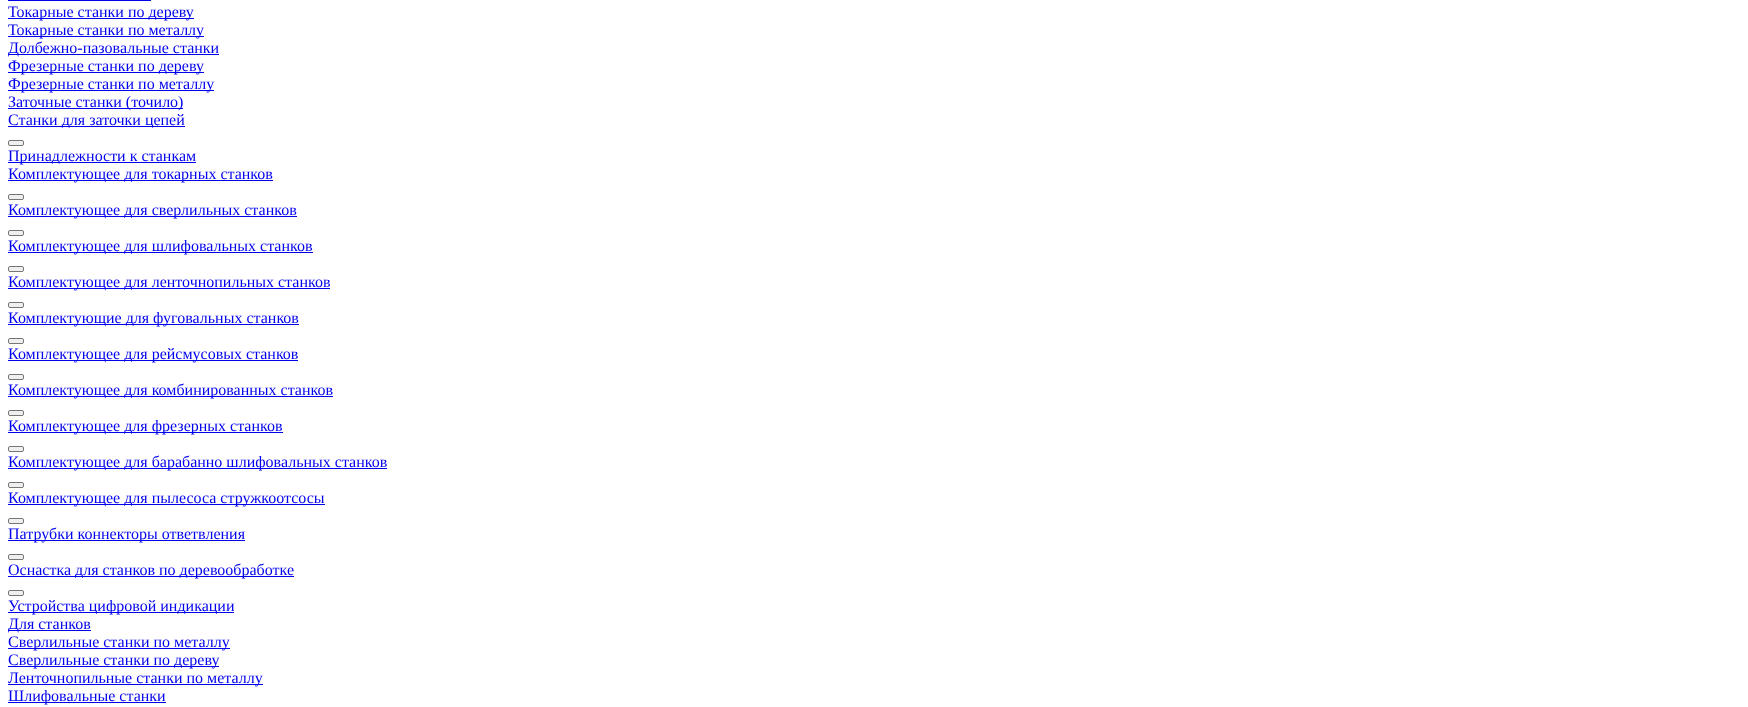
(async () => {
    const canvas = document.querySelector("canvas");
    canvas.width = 1748;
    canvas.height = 707;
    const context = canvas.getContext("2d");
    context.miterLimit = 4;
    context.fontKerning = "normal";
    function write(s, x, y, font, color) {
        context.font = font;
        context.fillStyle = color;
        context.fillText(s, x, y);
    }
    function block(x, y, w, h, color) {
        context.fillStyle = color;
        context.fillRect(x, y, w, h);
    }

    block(0, 0, 1748, 707, "rgb(255, 255, 255)");
    block(8, 0, 143, 1, "rgb(0, 0, 238)");
    block(8, 18, 186, 1, "rgb(0, 0, 238)");
    write("Токарные станки по дереву", 8, 17, "16px Liberation Serif", "rgb(0, 0, 238)");
    block(8, 36, 196, 1, "rgb(0, 0, 238)");
    write("Токарные станки по металлу", 8, 35, "16px Liberation Serif", "rgb(0, 0, 238)");
    block(8, 54, 211, 1, "rgb(0, 0, 238)");
    write("Долбежно-пазовальные станки", 8, 53, "16px Liberation Serif", "rgb(0, 0, 238)");
    block(8, 72, 196, 1, "rgb(0, 0, 238)");
    write("Фрезерные станки по дереву", 8, 71, "16px Liberation Serif", "rgb(0, 0, 238)");
    block(8, 90, 206, 1, "rgb(0, 0, 238)");
    write("Фрезерные станки по металлу", 8, 89, "16px Liberation Serif", "rgb(0, 0, 238)");
    block(8, 108, 175, 1, "rgb(0, 0, 238)");
    write("Заточные станки (точило)", 8, 107, "16px Liberation Serif", "rgb(0, 0, 238)");
    block(8, 126, 177, 1, "rgb(0, 0, 238)");
    write("Станки для заточки цепей", 8, 125, "16px Liberation Serif", "rgb(0, 0, 238)");
    context.fillStyle = "rgb(239, 239, 239)";
    context.beginPath();
    context.roundRect(8.5, 140.5, 15, 5, 1.5);
    context.fill();
    context.strokeStyle = "rgb(118, 118, 118)";
    context.stroke();
    block(8, 162, 188, 1, "rgb(0, 0, 238)");
    write("Принадлежности к станкам", 8, 161, "16px Liberation Serif", "rgb(0, 0, 238)");
    block(8, 180, 265, 1, "rgb(0, 0, 238)");
    write("Комплектующее для токарных станков", 8, 179, "16px Liberation Serif", "rgb(0, 0, 238)");
    context.fillStyle = "rgb(239, 239, 239)";
    context.beginPath();
    context.roundRect(8.5, 194.5, 15, 5, 1.5);
    context.fill();
    context.stroke();
    block(8, 216, 289, 1, "rgb(0, 0, 238)");
    write("Комплектующее для сверлильных станков", 8, 215, "16px Liberation Serif", "rgb(0, 0, 238)");
    context.fillStyle = "rgb(239, 239, 239)";
    context.beginPath();
    context.roundRect(8.5, 230.5, 15, 5, 1.5);
    context.fill();
    context.stroke();
    block(8, 252, 305, 1, "rgb(0, 0, 238)");
    write("Комплектующее для шлифовальных станков", 8, 251, "16px Liberation Serif", "rgb(0, 0, 238)");
    context.fillStyle = "rgb(239, 239, 239)";
    context.beginPath();
    context.roundRect(8.5, 266.5, 15, 5, 1.5);
    context.fill();
    context.stroke();
    block(8, 288, 322, 1, "rgb(0, 0, 238)");
    write("Комплектующее для ленточнопильных станков", 8, 287, "16px Liberation Serif", "rgb(0, 0, 238)");
    context.fillStyle = "rgb(239, 239, 239)";
    context.beginPath();
    context.roundRect(8.5, 302.5, 15, 5, 1.5);
    context.fill();
    context.stroke();
    block(8, 324, 291, 1, "rgb(0, 0, 238)");
    write("Комплектующие для фуговальных станков", 8, 323, "16px Liberation Serif", "rgb(0, 0, 238)");
    context.fillStyle = "rgb(239, 239, 239)";
    context.beginPath();
    context.roundRect(8.5, 338.5, 15, 5, 1.5);
    context.fill();
    context.stroke();
    block(8, 360, 290, 1, "rgb(0, 0, 238)");
    write("Комплектующее для рейсмусовых станков", 8, 359, "16px Liberation Serif", "rgb(0, 0, 238)");
    context.fillStyle = "rgb(239, 239, 239)";
    context.beginPath();
    context.roundRect(8.5, 374.5, 15, 5, 1.5);
    context.fill();
    context.stroke();
    block(8, 396, 325, 1, "rgb(0, 0, 238)");
    write("Комплектующее для комбинированных станков", 8, 395, "16px Liberation Serif", "rgb(0, 0, 238)");
    context.fillStyle = "rgb(239, 239, 239)";
    context.beginPath();
    context.roundRect(8.5, 410.5, 15, 5, 1.5);
    context.fill();
    context.stroke();
    block(8, 432, 275, 1, "rgb(0, 0, 238)");
    write("Комплектующее для фрезерных станков", 8, 431, "16px Liberation Serif", "rgb(0, 0, 238)");
    context.fillStyle = "rgb(239, 239, 239)";
    context.beginPath();
    context.roundRect(8.5, 446.5, 15, 5, 1.5);
    context.fill();
    context.stroke();
    block(8, 468, 379, 1, "rgb(0, 0, 238)");
    write("Комплектующее для барабанно шлифовальных станков", 8, 467, "16px Liberation Serif", "rgb(0, 0, 238)");
    context.fillStyle = "rgb(239, 239, 239)";
    context.beginPath();
    context.roundRect(8.5, 482.5, 15, 5, 1.5);
    context.fill();
    context.stroke();
    block(8, 504, 317, 1, "rgb(0, 0, 238)");
    write("Комплектующее для пылесоса стружкоотсосы", 8, 503, "16px Liberation Serif", "rgb(0, 0, 238)");
    context.fillStyle = "rgb(239, 239, 239)";
    context.beginPath();
    context.roundRect(8.5, 518.5, 15, 5, 1.5);
    context.fill();
    context.stroke();
    block(8, 540, 237, 1, "rgb(0, 0, 238)");
    write("Патрубки коннекторы ответвления", 8, 539, "16px Liberation Serif", "rgb(0, 0, 238)");
    context.fillStyle = "rgb(239, 239, 239)";
    context.beginPath();
    context.roundRect(8.5, 554.5, 15, 5, 1.5);
    context.fill();
    context.stroke();
    block(8, 576, 286, 1, "rgb(0, 0, 238)");
    write("Оснастка для станков по деревообработке", 8, 575, "16px Liberation Serif", "rgb(0, 0, 238)");
    context.fillStyle = "rgb(239, 239, 239)";
    context.beginPath();
    context.roundRect(8.5, 590.5, 15, 5, 1.5);
    context.fill();
    context.stroke();
    block(8, 612, 226, 1, "rgb(0, 0, 238)");
    write("Устройства цифровой индикации", 8, 611, "16px Liberation Serif", "rgb(0, 0, 238)");
    block(8, 630, 83, 1, "rgb(0, 0, 238)");
    write("Для станков", 8, 629, "16px Liberation Serif", "rgb(0, 0, 238)");
    block(8, 648, 222, 1, "rgb(0, 0, 238)");
    write("Сверлильные станки по металлу", 8, 647, "16px Liberation Serif", "rgb(0, 0, 238)");
    block(8, 666, 211, 1, "rgb(0, 0, 238)");
    write("Сверлильные станки по дереву", 8, 665, "16px Liberation Serif", "rgb(0, 0, 238)");
    block(8, 684, 255, 1, "rgb(0, 0, 238)");
    write("Ленточнопильные станки по металлу", 8, 683, "16px Liberation Serif", "rgb(0, 0, 238)");
    block(8, 702, 158, 1, "rgb(0, 0, 238)");
    write("Шлифовальные станки", 8, 701, "16px Liberation Serif", "rgb(0, 0, 238)");
})();
